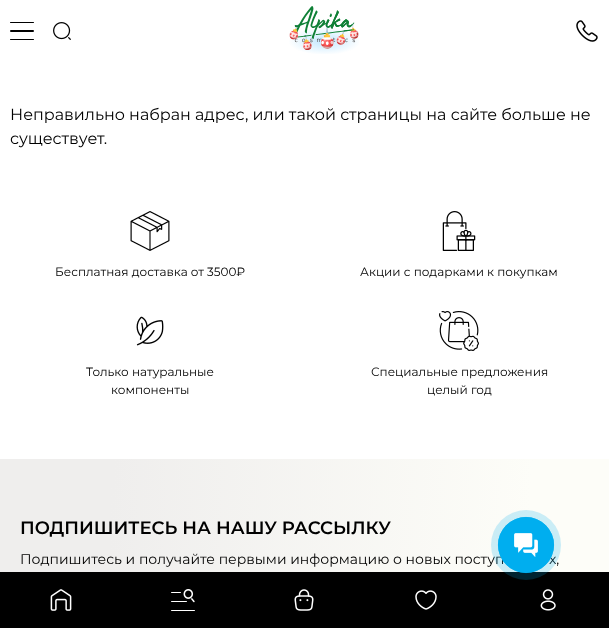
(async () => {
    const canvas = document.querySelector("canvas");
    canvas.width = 609;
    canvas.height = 628;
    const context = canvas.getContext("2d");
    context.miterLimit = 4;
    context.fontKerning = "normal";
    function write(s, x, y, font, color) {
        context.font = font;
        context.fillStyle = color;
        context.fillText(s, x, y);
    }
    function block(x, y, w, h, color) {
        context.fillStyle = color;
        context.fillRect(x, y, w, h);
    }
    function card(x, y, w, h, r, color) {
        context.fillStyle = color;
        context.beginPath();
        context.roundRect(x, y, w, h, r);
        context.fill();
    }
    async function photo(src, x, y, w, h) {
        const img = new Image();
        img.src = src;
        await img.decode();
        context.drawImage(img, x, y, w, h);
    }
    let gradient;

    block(0, 0, 609, 628, "rgb(255, 255, 255)");
    card(10, 22, 24, 1, 0.5, "rgb(0, 0, 0)");
    card(10, 30, 24, 2, 1, "rgb(0, 0, 0)");
    card(10, 39, 24, 1, 0.5, "rgb(0, 0, 0)");
    await photo("media/1.png", 53, 22, 18, 18);
    await photo("media/2.png", 289, 6, 70, 48);
    await photo("media/3.png", 576, 20, 22, 22);
    write("Неправильно набран адрес, или такой страницы на сайте больше не", 10, 120, "16px Montserrat", "rgb(0, 0, 0)");
    write("существует.", 10, 144, "16px Montserrat", "rgb(0, 0, 0)");
    await photo("media/4.png", 130, 211, 40, 40);
    write("Бесплатная доставка от 3500₽", 55, 276, "12px Montserrat", "rgb(0, 0, 0)");
    await photo("media/5.png", 442, 211, 34, 40);
    write("Акции с подарками к покупкам", 360, 276, "12px Montserrat", "rgb(0, 0, 0)");
    await photo("media/6.png", 136, 316, 28, 30);
    write("Только натуральные", 86, 376, "12px Montserrat", "rgb(0, 0, 0)");
    write("компоненты", 111, 394, "12px Montserrat", "rgb(0, 0, 0)");
    await photo("media/7.png", 439, 311, 40, 40);
    write("Специальные предложения", 371, 376, "12px Montserrat", "rgb(0, 0, 0)");
    write("целый год", 427, 394, "12px Montserrat", "rgb(0, 0, 0)");
    gradient = context.createLinearGradient(-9, 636, 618, 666);
    gradient.addColorStop(0.18, "rgb(239, 238, 237)");
    gradient.addColorStop(0.85, "rgb(253, 253, 248)");
    context.fillStyle = gradient;
    context.fillRect(0, 459, 609, 113);
    write("Подпишитесь и получайте первыми информацию о новых поступ", 20, 564, "14px Montserrat", "rgb(0, 0, 0)");
    write("х,", 549, 564, "14px Montserrat", "rgb(0, 0, 0)");
    block(0, 572, 609, 56, "rgb(0, 0, 0)");
    context.fillStyle = "rgba(0, 174, 239, 0.2)";
    context.beginPath();
    context.arc(526, 545, 35, 0, Math.PI * 2);
    context.fill();
    context.beginPath();
    context.arc(526, 545, 27.6, 0, Math.PI * 2);
    context.strokeStyle = "rgb(0, 174, 239)";
    context.lineWidth = 0.8;
    context.stroke();
    context.fillStyle = "rgb(0, 174, 239)";
    context.beginPath();
    context.arc(526, 545, 28, 0, Math.PI * 2);
    context.fill();
    await photo("media/8.png", 514, 533, 24, 24);
    write("ПОДПИШИТЕСЬ НА НАШУ РАССЫЛКУ", 20, 534, "600 18px Montserrat", "rgb(0, 0, 0)");
    await photo("media/9.png", 50, 589, 22, 22);
    await photo("media/10.png", 171, 589, 24, 22);
    await photo("media/11.png", 294, 589, 20, 22);
    await photo("media/12.png", 415, 590, 22, 20);
    await photo("media/13.png", 540, 589, 16, 22);
})();
